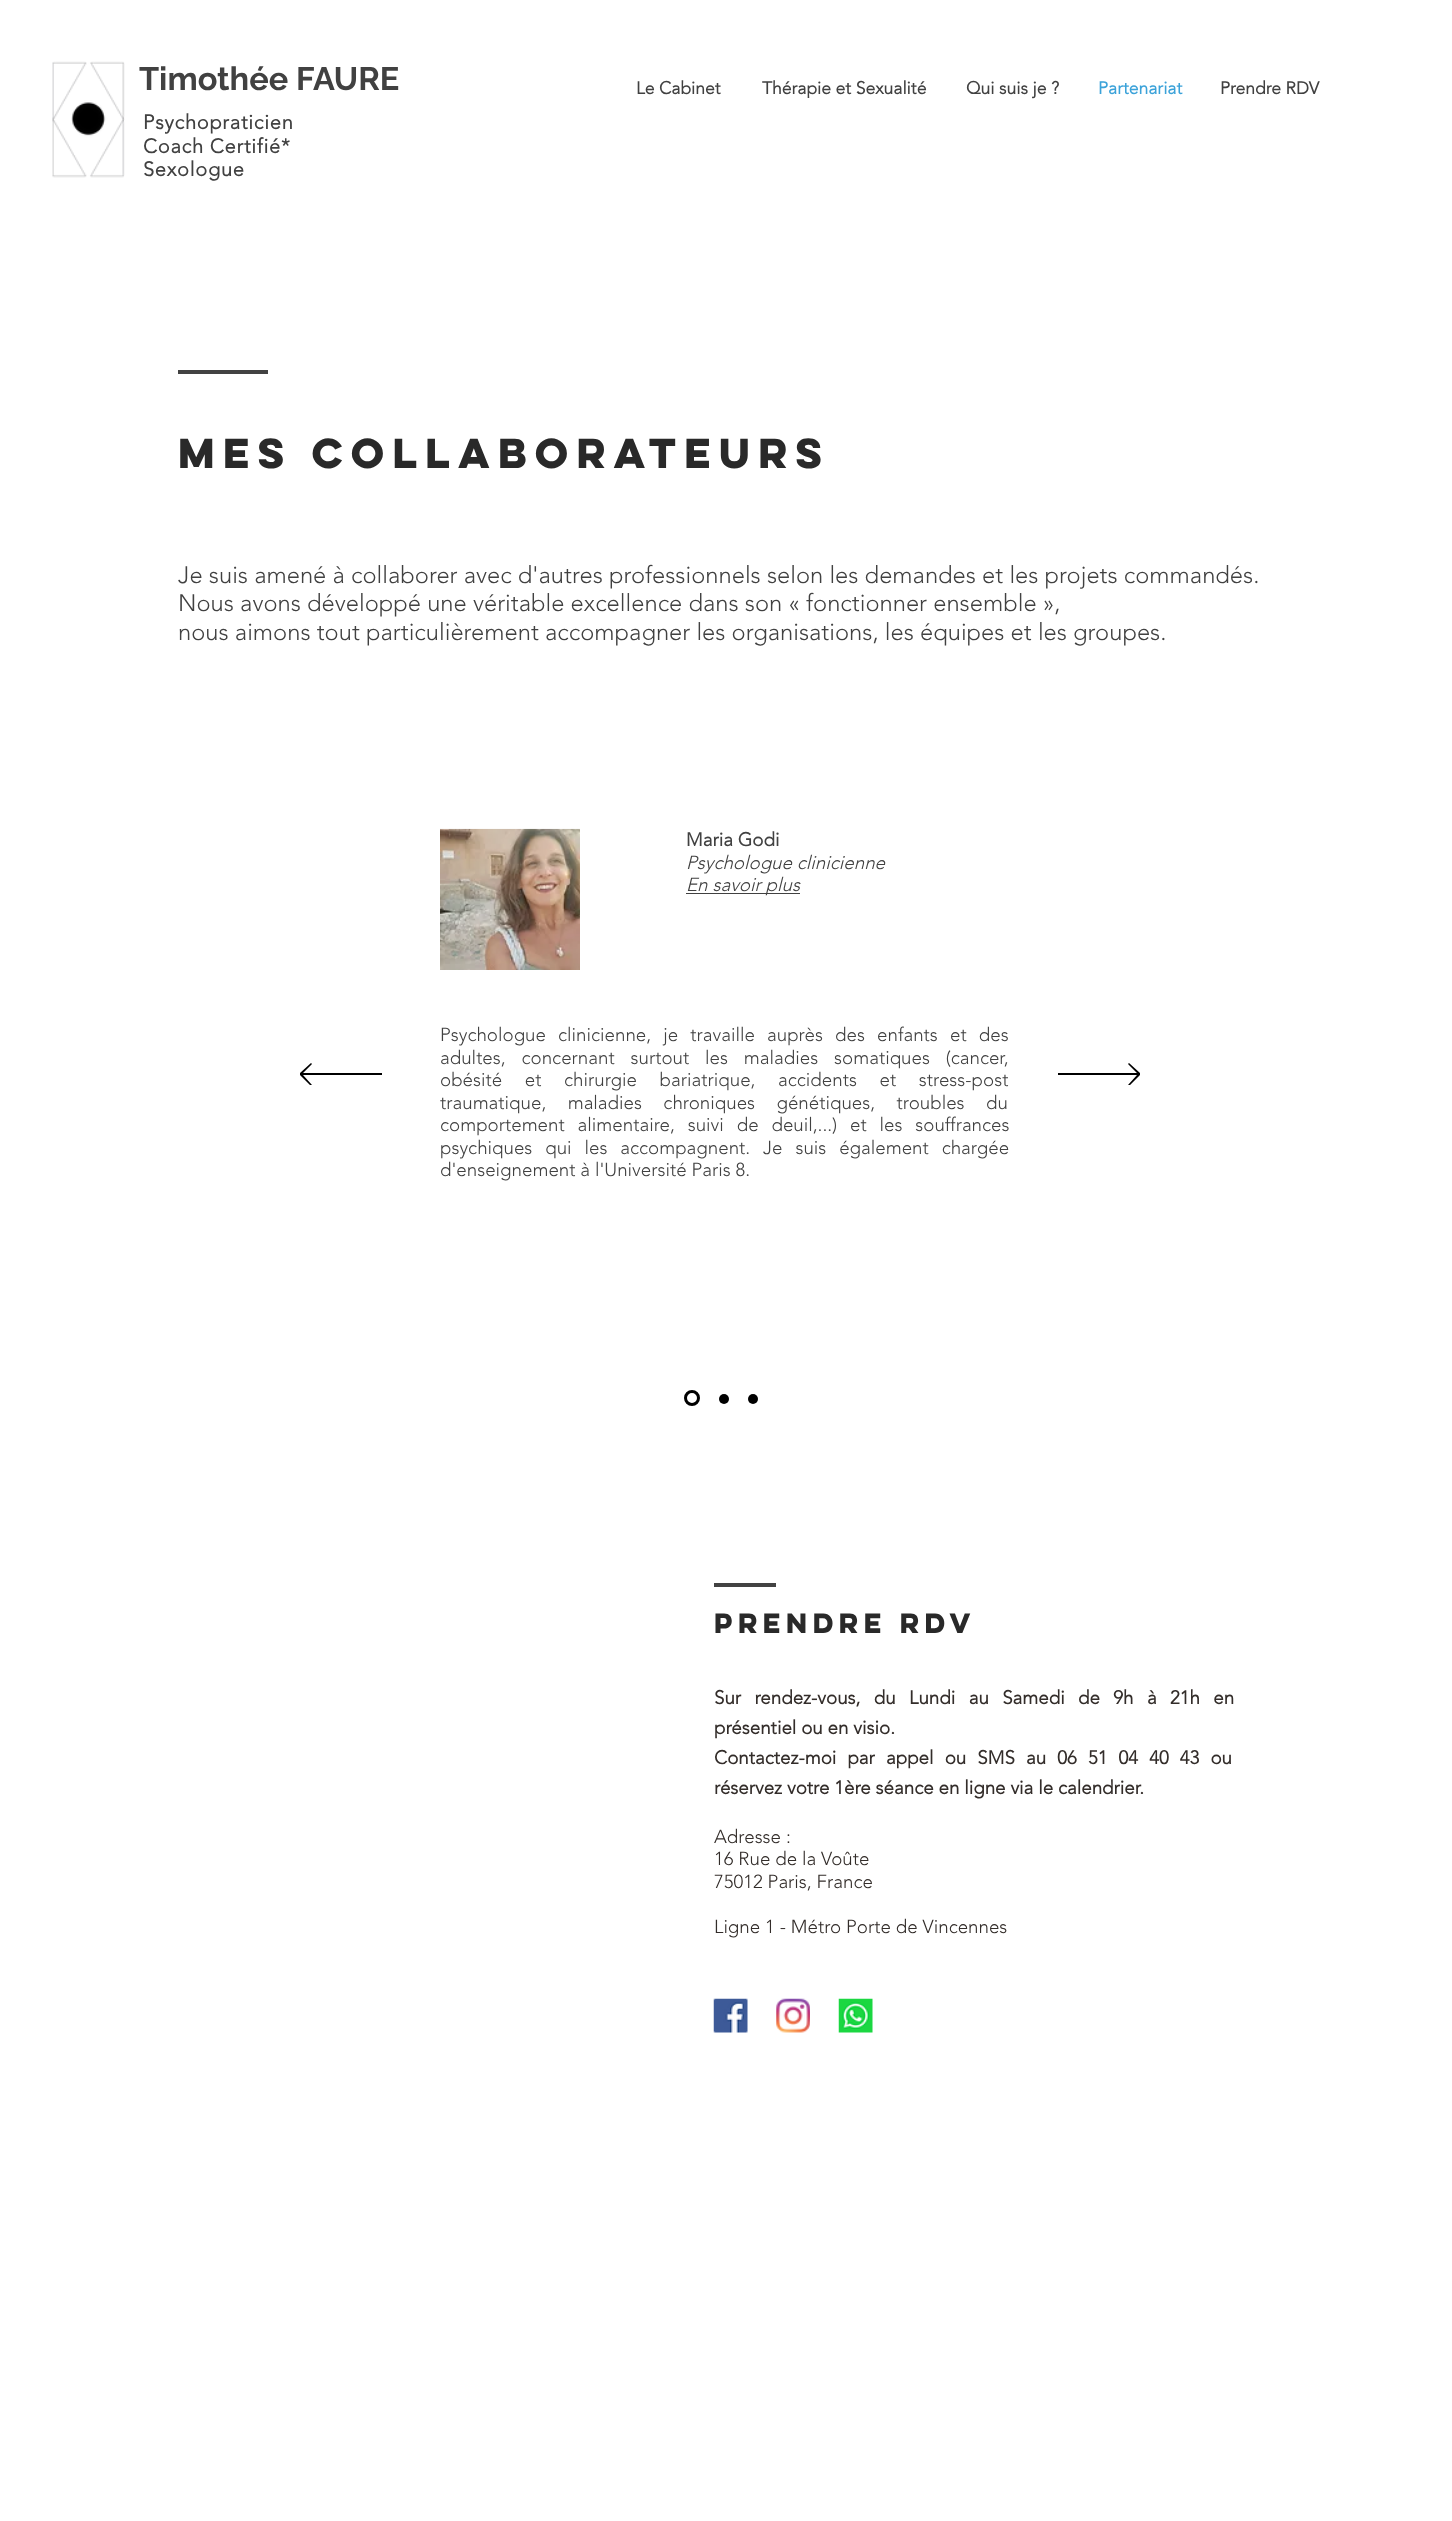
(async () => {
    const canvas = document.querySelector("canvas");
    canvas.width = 1452;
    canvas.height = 2521;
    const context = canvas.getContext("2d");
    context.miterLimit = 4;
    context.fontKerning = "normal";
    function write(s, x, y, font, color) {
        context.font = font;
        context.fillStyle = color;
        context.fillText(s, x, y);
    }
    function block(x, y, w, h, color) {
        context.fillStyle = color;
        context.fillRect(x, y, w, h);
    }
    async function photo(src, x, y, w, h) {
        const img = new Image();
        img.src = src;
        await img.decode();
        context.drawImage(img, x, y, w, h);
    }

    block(0, 0, 1452, 2521, "rgb(255, 255, 255)");
    await photo("media/1.png", 52, 61, 73, 117);
    write("Timothée FAURE", 139, 90, "bold 32.5px Raleway", "rgb(65, 65, 65)");
    write("Le Cabinet", 636, 94, "bold 17.5px 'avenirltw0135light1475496'", "rgb(65, 65, 65)");
    write("Thérapie et Sexualité", 762, 94, "bold 17.5px 'avenirltw0135light1475496'", "rgb(65, 65, 65)");
    write("Qui suis je ?", 966, 94, "bold 17.5px 'avenirltw0135light1475496'", "rgb(65, 65, 65)");
    write("Partenariat", 1098, 94, "bold 17.5px 'avenirltw0135light1475496'", "rgb(59, 162, 217)");
    write("Prendre RDV", 1220, 94, "bold 17.5px 'avenirltw0135light1475496'", "rgb(65, 65, 65)");
    context.letterSpacing = "0.75px";
    write("Psychopraticien", 143, 129, "bold 20px 'avenirltw0135light1475496'", "rgb(65, 65, 65)");
    write("Coach Certifié*", 143, 153, "bold 20px 'avenirltw0135light1475496'", "rgb(65, 65, 65)");
    write("Sexologue", 143, 176, "bold 20px 'avenirltw0135light1475496'", "rgb(65, 65, 65)");
    block(178, 370, 90, 4, "rgb(66, 66, 66)");
    context.letterSpacing = "0px";
    write("Mes collaborateurs", 178, 468, "bold 37.5px 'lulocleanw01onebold'", "rgb(41, 41, 41)");
    write("Je suis amené à collaborer avec d'autres professionnels selon les demandes et les projets commandés.", 178, 583, "300 23.75px 'avenirltw0135light1475496'", "rgb(65, 65, 65)");
    write("Nous avons développé une véritable excellence dans son « fonctionner ensemble »,", 178, 611, "300 23.75px 'avenirltw0135light1475496'", "rgb(65, 65, 65)");
    write("nous aimons tout particulièrement accompagner les organisations, les équipes et les groupes.", 178, 640, "300 23.75px 'avenirltw0135light1475496'", "rgb(65, 65, 65)");
    context.save();
    context.beginPath();
    context.rect(300, 1063, 83, 22);
    context.clip();
    context.fillStyle = "rgb(0, 0, 0)";
    context.beginPath();
    context.moveTo(311, 1063);
    context.lineTo(312, 1064);
    context.lineTo(303, 1073);
    context.lineTo(382, 1073);
    context.lineTo(382, 1075);
    context.lineTo(303, 1075);
    context.lineTo(312, 1085);
    context.lineTo(311, 1086);
    context.lineTo(299, 1074);
    context.closePath();
    context.fill();
    context.restore();
    await photo("media/2.png", 440, 828, 140, 142);
    write("Maria Godi", 686, 846, "bold 18.75px 'avenirltw0135light1475496'", "rgb(65, 65, 65)");
    write("Psychologue clinicienne", 686, 869, "italic 300 18.75px 'avenirltw0135light1475496'", "rgb(65, 65, 65)");
    block(686, 893, 114, 1, "rgb(65, 65, 65)");
    write("En savoir plus", 686, 891, "italic 300 18.75px 'avenirltw0135light1475496'", "rgb(65, 65, 65)");
    context.wordSpacing = "7.25px";
    write("Psychologue clinicienne, je travaille auprès des enfants et des", 440, 1041, "300 18.75px 'avenirltw0135light1475496'", "rgb(65, 65, 65)");
    context.wordSpacing = "11px";
    write("adultes, concernant surtout les maladies somatiques (cancer,", 440, 1064, "300 18.75px 'avenirltw0135light1475496'", "rgb(65, 65, 65)");
    context.wordSpacing = "17.75px";
    write("obésité et chirurgie bariatrique, accidents et stress-post", 440, 1086, "300 18.75px 'avenirltw0135light1475496'", "rgb(65, 65, 65)");
    context.wordSpacing = "16.5px";
    write("traumatique, maladies chroniques génétiques, troubles du", 440, 1109, "300 18.75px 'avenirltw0135light1475496'", "rgb(65, 65, 65)");
    context.wordSpacing = "8px";
    write("comportement alimentaire, suivi de deuil,...) et les souffrances", 440, 1131, "300 18.75px 'avenirltw0135light1475496'", "rgb(65, 65, 65)");
    write("psychiques qui les accompagnent. Je suis également chargée", 440, 1154, "300 18.75px 'avenirltw0135light1475496'", "rgb(65, 65, 65)");
    context.wordSpacing = "0px";
    write("d'enseignement à l'Université Paris 8.", 440, 1176, "300 18.75px 'avenirltw0135light1475496'", "rgb(65, 65, 65)");
    context.save();
    context.beginPath();
    context.rect(1058, 1063, 82, 22);
    context.clip();
    context.fillStyle = "rgb(0, 0, 0)";
    context.beginPath();
    context.moveTo(1129, 1063);
    context.lineTo(1128, 1064);
    context.lineTo(1137, 1073);
    context.lineTo(1058, 1073);
    context.lineTo(1058, 1075);
    context.lineTo(1137, 1075);
    context.lineTo(1128, 1085);
    context.lineTo(1129, 1086);
    context.lineTo(1141, 1074);
    context.closePath();
    context.fill();
    context.restore();
    context.beginPath();
    context.arc(692, 1398, 6.5, 0, Math.PI * 2);
    context.strokeStyle = "rgb(0, 0, 0)";
    context.lineWidth = 3;
    context.stroke();
    context.fillStyle = "rgb(0, 0, 0)";
    context.beginPath();
    context.arc(724, 1399, 5, 0, Math.PI * 2);
    context.fill();
    context.beginPath();
    context.arc(753, 1399, 5, 0, Math.PI * 2);
    context.fill();
    block(714, 1583, 62, 4, "rgb(66, 66, 66)");
    write("PRENDRE RDV", 714, 1633, "bold 25px 'lulocleanw01onebold'", "rgb(41, 41, 41)");
    context.wordSpacing = "8.5px";
    write("Sur rendez-vous, du Lundi au Samedi de 9h à 21h en", 714, 1704, "bold 18.75px 'avenirltw0135light1475496'", "rgb(51, 45, 42)");
    context.wordSpacing = "0px";
    write("présentiel ou en visio.", 714, 1734, "bold 18.75px 'avenirltw0135light1475496'", "rgb(51, 45, 42)");
    context.wordSpacing = "6.25px";
    write("Contactez-moi par appel ou SMS au 06 51 04 40 43 ou", 714, 1764, "bold 18.75px 'avenirltw0135light1475496'", "rgb(51, 45, 42)");
    context.wordSpacing = "0px";
    write("réservez votre 1ère séance en ligne via le calendrier.", 714, 1794, "bold 18.75px 'avenirltw0135light1475496'", "rgb(51, 45, 42)");
    write("Adresse :", 714, 1843, "300 18.75px 'avenirltw0135light1475496'", "rgb(51, 45, 42)");
    write("16 Rue de la Voûte", 714, 1865, "300 18.75px 'avenirltw0135light1475496'", "rgb(51, 45, 42)");
    write("75012 Paris, France", 714, 1888, "300 18.75px 'avenirltw0135light1475496'", "rgb(51, 45, 42)");
    write("Ligne 1 - Métro Porte de Vincennes", 714, 1933, "300 18.75px 'avenirltw0135light1475496'", "rgb(51, 45, 42)");
    await photo("media/3.png", 713, 1998, 35, 35);
    await photo("media/4.png", 776, 1998, 34, 35);
    await photo("media/5.png", 838, 1998, 35, 35);
})();
